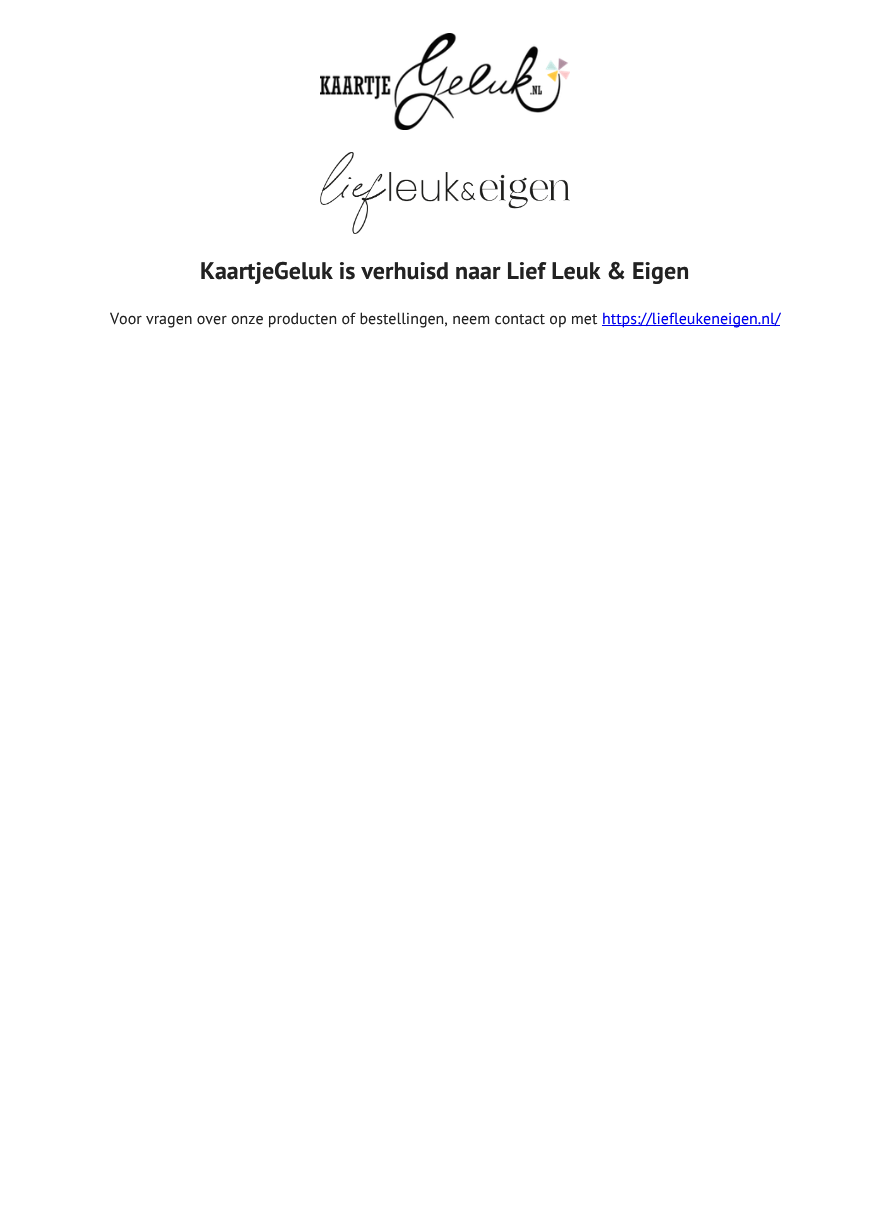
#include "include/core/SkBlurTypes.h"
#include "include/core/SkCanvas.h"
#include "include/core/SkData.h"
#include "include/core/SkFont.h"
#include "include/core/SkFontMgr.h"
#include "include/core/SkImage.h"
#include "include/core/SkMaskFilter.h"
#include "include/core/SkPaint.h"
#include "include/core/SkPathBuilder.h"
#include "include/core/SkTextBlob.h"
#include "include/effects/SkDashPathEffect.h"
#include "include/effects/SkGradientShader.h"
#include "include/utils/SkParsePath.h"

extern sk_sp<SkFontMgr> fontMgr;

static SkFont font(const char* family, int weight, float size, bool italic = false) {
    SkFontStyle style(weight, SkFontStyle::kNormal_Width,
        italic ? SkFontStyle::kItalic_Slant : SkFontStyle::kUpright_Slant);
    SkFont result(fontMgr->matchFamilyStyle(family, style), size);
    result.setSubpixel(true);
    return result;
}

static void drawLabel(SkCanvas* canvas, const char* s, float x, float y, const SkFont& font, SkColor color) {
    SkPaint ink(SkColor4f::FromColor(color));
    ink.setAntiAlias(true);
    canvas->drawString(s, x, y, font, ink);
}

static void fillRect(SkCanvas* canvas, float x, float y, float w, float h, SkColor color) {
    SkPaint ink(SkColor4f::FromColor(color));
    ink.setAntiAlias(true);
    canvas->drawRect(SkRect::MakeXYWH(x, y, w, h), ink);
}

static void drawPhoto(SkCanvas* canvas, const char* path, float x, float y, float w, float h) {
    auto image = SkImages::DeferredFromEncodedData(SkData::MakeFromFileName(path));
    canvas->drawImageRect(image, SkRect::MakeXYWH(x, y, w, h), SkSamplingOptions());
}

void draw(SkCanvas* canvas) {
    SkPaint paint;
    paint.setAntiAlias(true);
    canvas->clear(0xFFFFFFFF);
    drawPhoto(canvas, "assets/img1.png", 320, 33, 250, 97);
    drawPhoto(canvas, "assets/img2.png", 320, 152, 250, 82);
    SkFont font1 = font("PT Sans", 700, 24);
    drawLabel(canvas, "KaartjeGeluk is verhuisd naar Lief Leuk & Eigen", 200, 279, font1, 0xFF222222);
    SkFont font2 = font("PT Sans", 400, 16);
    drawLabel(canvas, "Voor vragen over onze producten of bestellingen, neem contact op met", 110, 324, font2, 0xFF222222);
    fillRect(canvas, 602, 325, 178, 1, 0xFF0000EE);
    drawLabel(canvas, "https://liefleukeneigen.nl/", 602, 324, font2, 0xFF0000EE);
}
